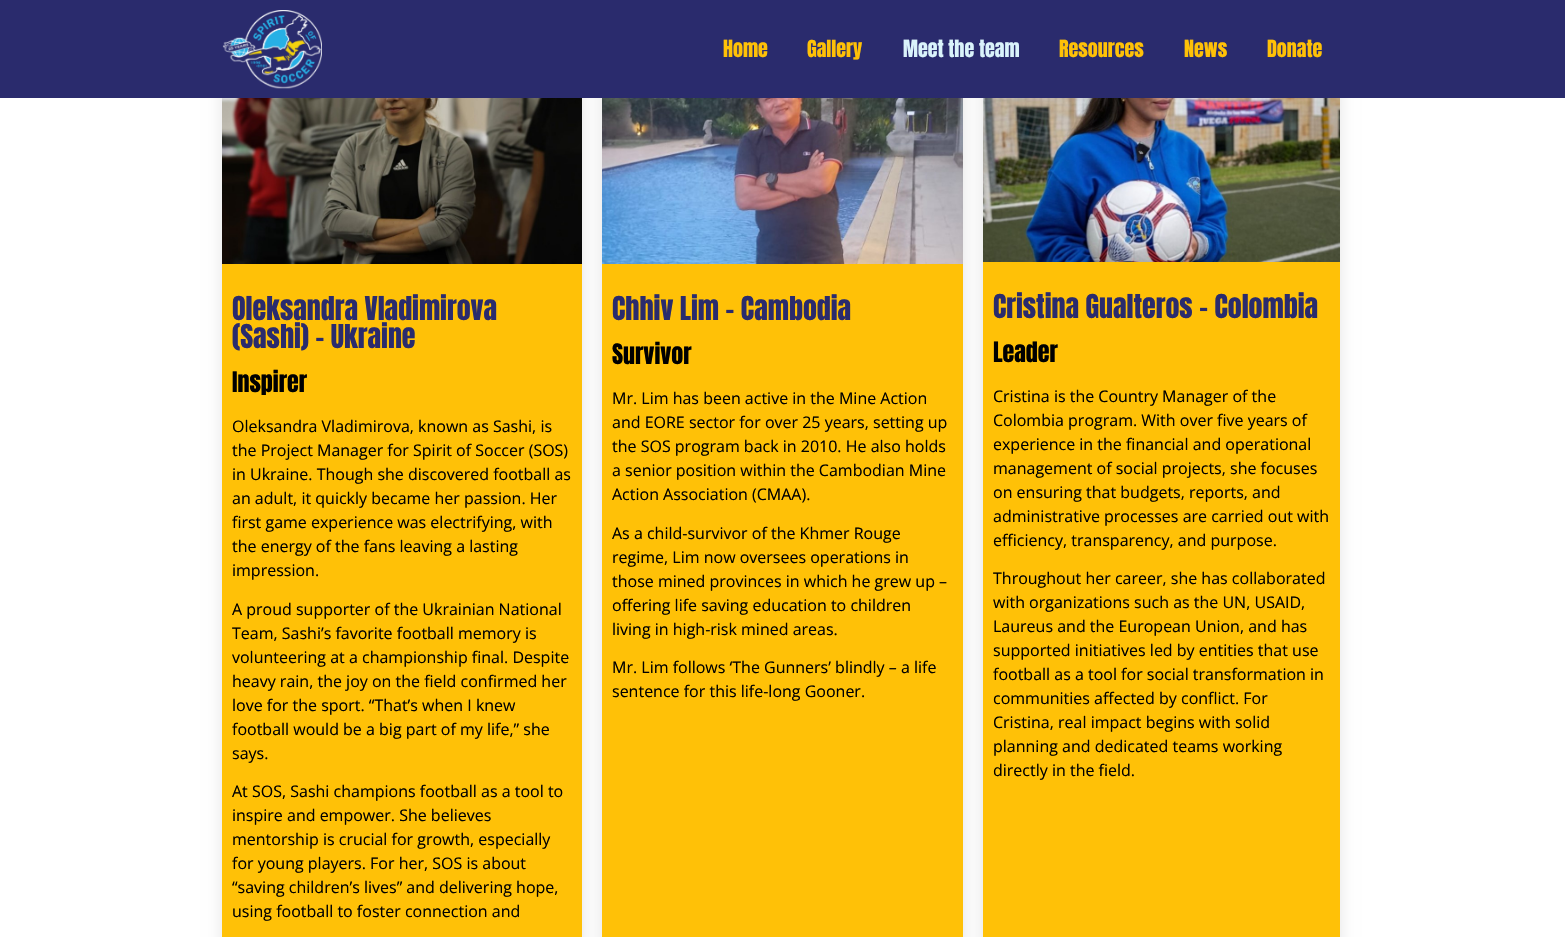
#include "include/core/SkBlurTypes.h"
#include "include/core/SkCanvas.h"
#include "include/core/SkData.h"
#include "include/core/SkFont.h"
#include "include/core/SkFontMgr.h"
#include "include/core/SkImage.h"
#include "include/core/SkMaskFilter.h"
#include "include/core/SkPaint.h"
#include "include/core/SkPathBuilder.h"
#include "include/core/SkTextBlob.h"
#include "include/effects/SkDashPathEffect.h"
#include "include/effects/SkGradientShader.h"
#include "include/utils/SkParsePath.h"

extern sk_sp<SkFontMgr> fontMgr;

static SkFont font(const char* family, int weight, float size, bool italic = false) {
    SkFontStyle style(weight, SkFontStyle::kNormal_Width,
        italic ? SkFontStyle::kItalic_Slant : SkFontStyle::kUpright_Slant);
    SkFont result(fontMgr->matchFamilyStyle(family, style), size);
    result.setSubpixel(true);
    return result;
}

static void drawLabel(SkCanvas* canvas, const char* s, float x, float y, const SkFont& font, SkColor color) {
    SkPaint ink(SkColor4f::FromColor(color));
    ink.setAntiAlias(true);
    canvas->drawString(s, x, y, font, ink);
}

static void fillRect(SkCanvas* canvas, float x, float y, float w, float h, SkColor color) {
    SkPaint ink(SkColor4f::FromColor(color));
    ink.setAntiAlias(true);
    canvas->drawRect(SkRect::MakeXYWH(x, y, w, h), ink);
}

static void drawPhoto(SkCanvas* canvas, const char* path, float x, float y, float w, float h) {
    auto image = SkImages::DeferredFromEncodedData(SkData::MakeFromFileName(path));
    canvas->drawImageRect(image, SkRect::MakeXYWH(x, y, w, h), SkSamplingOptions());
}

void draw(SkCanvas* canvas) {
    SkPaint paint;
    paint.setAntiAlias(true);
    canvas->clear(0xFFFFFFFF);
    paint.setColor(0x1A000000);
    paint.setMaskFilter(SkMaskFilter::MakeBlur(kNormal_SkBlurStyle, 7.5f));
    canvas->drawRect(SkRect::MakeXYWH(222, 35, 360, 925), paint);
    paint.setMaskFilter(nullptr);
    fillRect(canvas, 222, 264, 360, 673, 0xFFFFC107);
    drawPhoto(canvas, "assets/img2.png", 222, 98, 360, 166);
    paint.setMaskFilter(SkMaskFilter::MakeBlur(kNormal_SkBlurStyle, 7.5f));
    canvas->drawRect(SkRect::MakeXYWH(602, 35, 361, 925), paint);
    paint.setMaskFilter(nullptr);
    fillRect(canvas, 602, 264, 361, 673, 0xFFFFC107);
    drawPhoto(canvas, "assets/img3.png", 602, 98, 361, 166);
    paint.setMaskFilter(SkMaskFilter::MakeBlur(kNormal_SkBlurStyle, 7.5f));
    canvas->drawRect(SkRect::MakeXYWH(983, 35, 357, 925), paint);
    paint.setMaskFilter(nullptr);
    fillRect(canvas, 0, 0, 1565, 98, 0xFF2A2B6D);
    drawPhoto(canvas, "assets/img1.png", 222, 10, 100, 79);
    SkFont font1 = font("Anton", 400, 20);
    drawLabel(canvas, "Home", 723, 57, font1, 0xFFFFC107);
    drawLabel(canvas, "Gallery", 807, 57, font1, 0xFFFFC107);
    drawLabel(canvas, "Meet the team", 903, 57, font1, 0xFFDAF3FB);
    drawLabel(canvas, "Resources", 1059, 57, font1, 0xFFFFC107);
    drawLabel(canvas, "News", 1184, 57, font1, 0xFFFFC107);
    drawLabel(canvas, "Donate", 1267, 57, font1, 0xFFFFC107);
    SkFont font2 = font("Anton", 400, 28);
    drawLabel(canvas, "Oleksandra Vladimirova", 232, 320, font2, 0xFF2A2B6D);
    drawLabel(canvas, "(Sashi) - Ukraine", 232, 348, font2, 0xFF2A2B6D);
    SkFont font3 = font("Anton", 400, 24);
    drawLabel(canvas, "Inspirer", 232, 392, font3, 0xFF000000);
    SkFont font4 = font("Open Sans", 400, 16);
    drawLabel(canvas, "Oleksandra Vladimirova, known as Sashi, is", 232, 432, font4, 0xFF000000);
    drawLabel(canvas, "the Project Manager for Spirit of Soccer (SOS)", 232, 456, font4, 0xFF000000);
    drawLabel(canvas, "in Ukraine. Though she discovered football as", 232, 480, font4, 0xFF000000);
    drawLabel(canvas, "an adult, it quickly became her passion. Her", 232, 504, font4, 0xFF000000);
    drawLabel(canvas, "first game experience was electrifying, with", 232, 528, font4, 0xFF000000);
    drawLabel(canvas, "the energy of the fans leaving a lasting", 232, 552, font4, 0xFF000000);
    drawLabel(canvas, "impression.", 232, 576, font4, 0xFF000000);
    drawLabel(canvas, "A proud supporter of the Ukrainian National", 232, 615, font4, 0xFF000000);
    drawLabel(canvas, "Team, Sashi’s favorite football memory is", 232, 639, font4, 0xFF000000);
    drawLabel(canvas, "volunteering at a championship final. Despite", 232, 663, font4, 0xFF000000);
    drawLabel(canvas, "heavy rain, the joy on the field confirmed her", 232, 687, font4, 0xFF000000);
    drawLabel(canvas, "love for the sport. “That’s when I knew", 232, 711, font4, 0xFF000000);
    drawLabel(canvas, "football would be a big part of my life,” she", 232, 735, font4, 0xFF000000);
    drawLabel(canvas, "says.", 232, 759, font4, 0xFF000000);
    drawLabel(canvas, "At SOS, Sashi champions football as a tool to", 232, 797, font4, 0xFF000000);
    drawLabel(canvas, "inspire and empower. She believes", 232, 821, font4, 0xFF000000);
    drawLabel(canvas, "mentorship is crucial for growth, especially", 232, 845, font4, 0xFF000000);
    drawLabel(canvas, "for young players. For her, SOS is about", 232, 869, font4, 0xFF000000);
    drawLabel(canvas, "“saving children’s lives” and delivering hope,", 232, 893, font4, 0xFF000000);
    drawLabel(canvas, "using football to foster connection and", 232, 917, font4, 0xFF000000);
    drawLabel(canvas, "Chhiv Lim - Cambodia", 612, 320, font2, 0xFF2A2B6D);
    drawLabel(canvas, "Survivor", 612, 364, font3, 0xFF000000);
    drawLabel(canvas, "Mr. Lim has been active in the Mine Action", 612, 404, font4, 0xFF000000);
    drawLabel(canvas, "and EORE sector for over 25 years, setting up", 612, 428, font4, 0xFF000000);
    drawLabel(canvas, "the SOS program back in 2010. He also holds", 612, 452, font4, 0xFF000000);
    drawLabel(canvas, "a senior position within the Cambodian Mine", 612, 476, font4, 0xFF000000);
    drawLabel(canvas, "Action Association (CMAA).", 612, 500, font4, 0xFF000000);
    drawLabel(canvas, "As a child-survivor of the Khmer Rouge", 612, 539, font4, 0xFF000000);
    drawLabel(canvas, "regime, Lim now oversees operations in", 612, 563, font4, 0xFF000000);
    drawLabel(canvas, "those mined provinces in which he grew up –", 612, 587, font4, 0xFF000000);
    drawLabel(canvas, "offering life saving education to children", 612, 611, font4, 0xFF000000);
    drawLabel(canvas, "living in high-risk mined areas.", 612, 635, font4, 0xFF000000);
    drawLabel(canvas, "Mr. Lim follows ‘The Gunners’ blindly – a life", 612, 673, font4, 0xFF000000);
    drawLabel(canvas, "sentence for this life-long Gooner.", 612, 697, font4, 0xFF000000);
    fillRect(canvas, 983, 262, 357, 675, 0xFFFFC107);
    drawPhoto(canvas, "assets/img4.png", 983, 98, 357, 164);
    drawLabel(canvas, "Cristina Gualteros - Colombia", 993, 318, font2, 0xFF2A2B6D);
    drawLabel(canvas, "Leader", 993, 362, font3, 0xFF000000);
    drawLabel(canvas, "Cristina is the Country Manager of the", 993, 402, font4, 0xFF000000);
    drawLabel(canvas, "Colombia program. With over five years of", 993, 426, font4, 0xFF000000);
    drawLabel(canvas, "experience in the financial and operational", 993, 450, font4, 0xFF000000);
    drawLabel(canvas, "management of social projects, she focuses", 993, 474, font4, 0xFF000000);
    drawLabel(canvas, "on ensuring that budgets, reports, and", 993, 498, font4, 0xFF000000);
    drawLabel(canvas, "administrative processes are carried out with", 993, 522, font4, 0xFF000000);
    drawLabel(canvas, "efficiency, transparency, and purpose.", 993, 546, font4, 0xFF000000);
    drawLabel(canvas, "Throughout her career, she has collaborated", 993, 584, font4, 0xFF000000);
    drawLabel(canvas, "with organizations such as the UN, USAID,", 993, 608, font4, 0xFF000000);
    drawLabel(canvas, "Laureus and the European Union, and has", 993, 632, font4, 0xFF000000);
    drawLabel(canvas, "supported initiatives led by entities that use", 993, 656, font4, 0xFF000000);
    drawLabel(canvas, "football as a tool for social transformation in", 993, 680, font4, 0xFF000000);
    drawLabel(canvas, "communities affected by conflict. For", 993, 704, font4, 0xFF000000);
    drawLabel(canvas, "Cristina, real impact begins with solid", 993, 728, font4, 0xFF000000);
    drawLabel(canvas, "planning and dedicated teams working", 993, 752, font4, 0xFF000000);
    drawLabel(canvas, "directly in the field.", 993, 776, font4, 0xFF000000);
}
